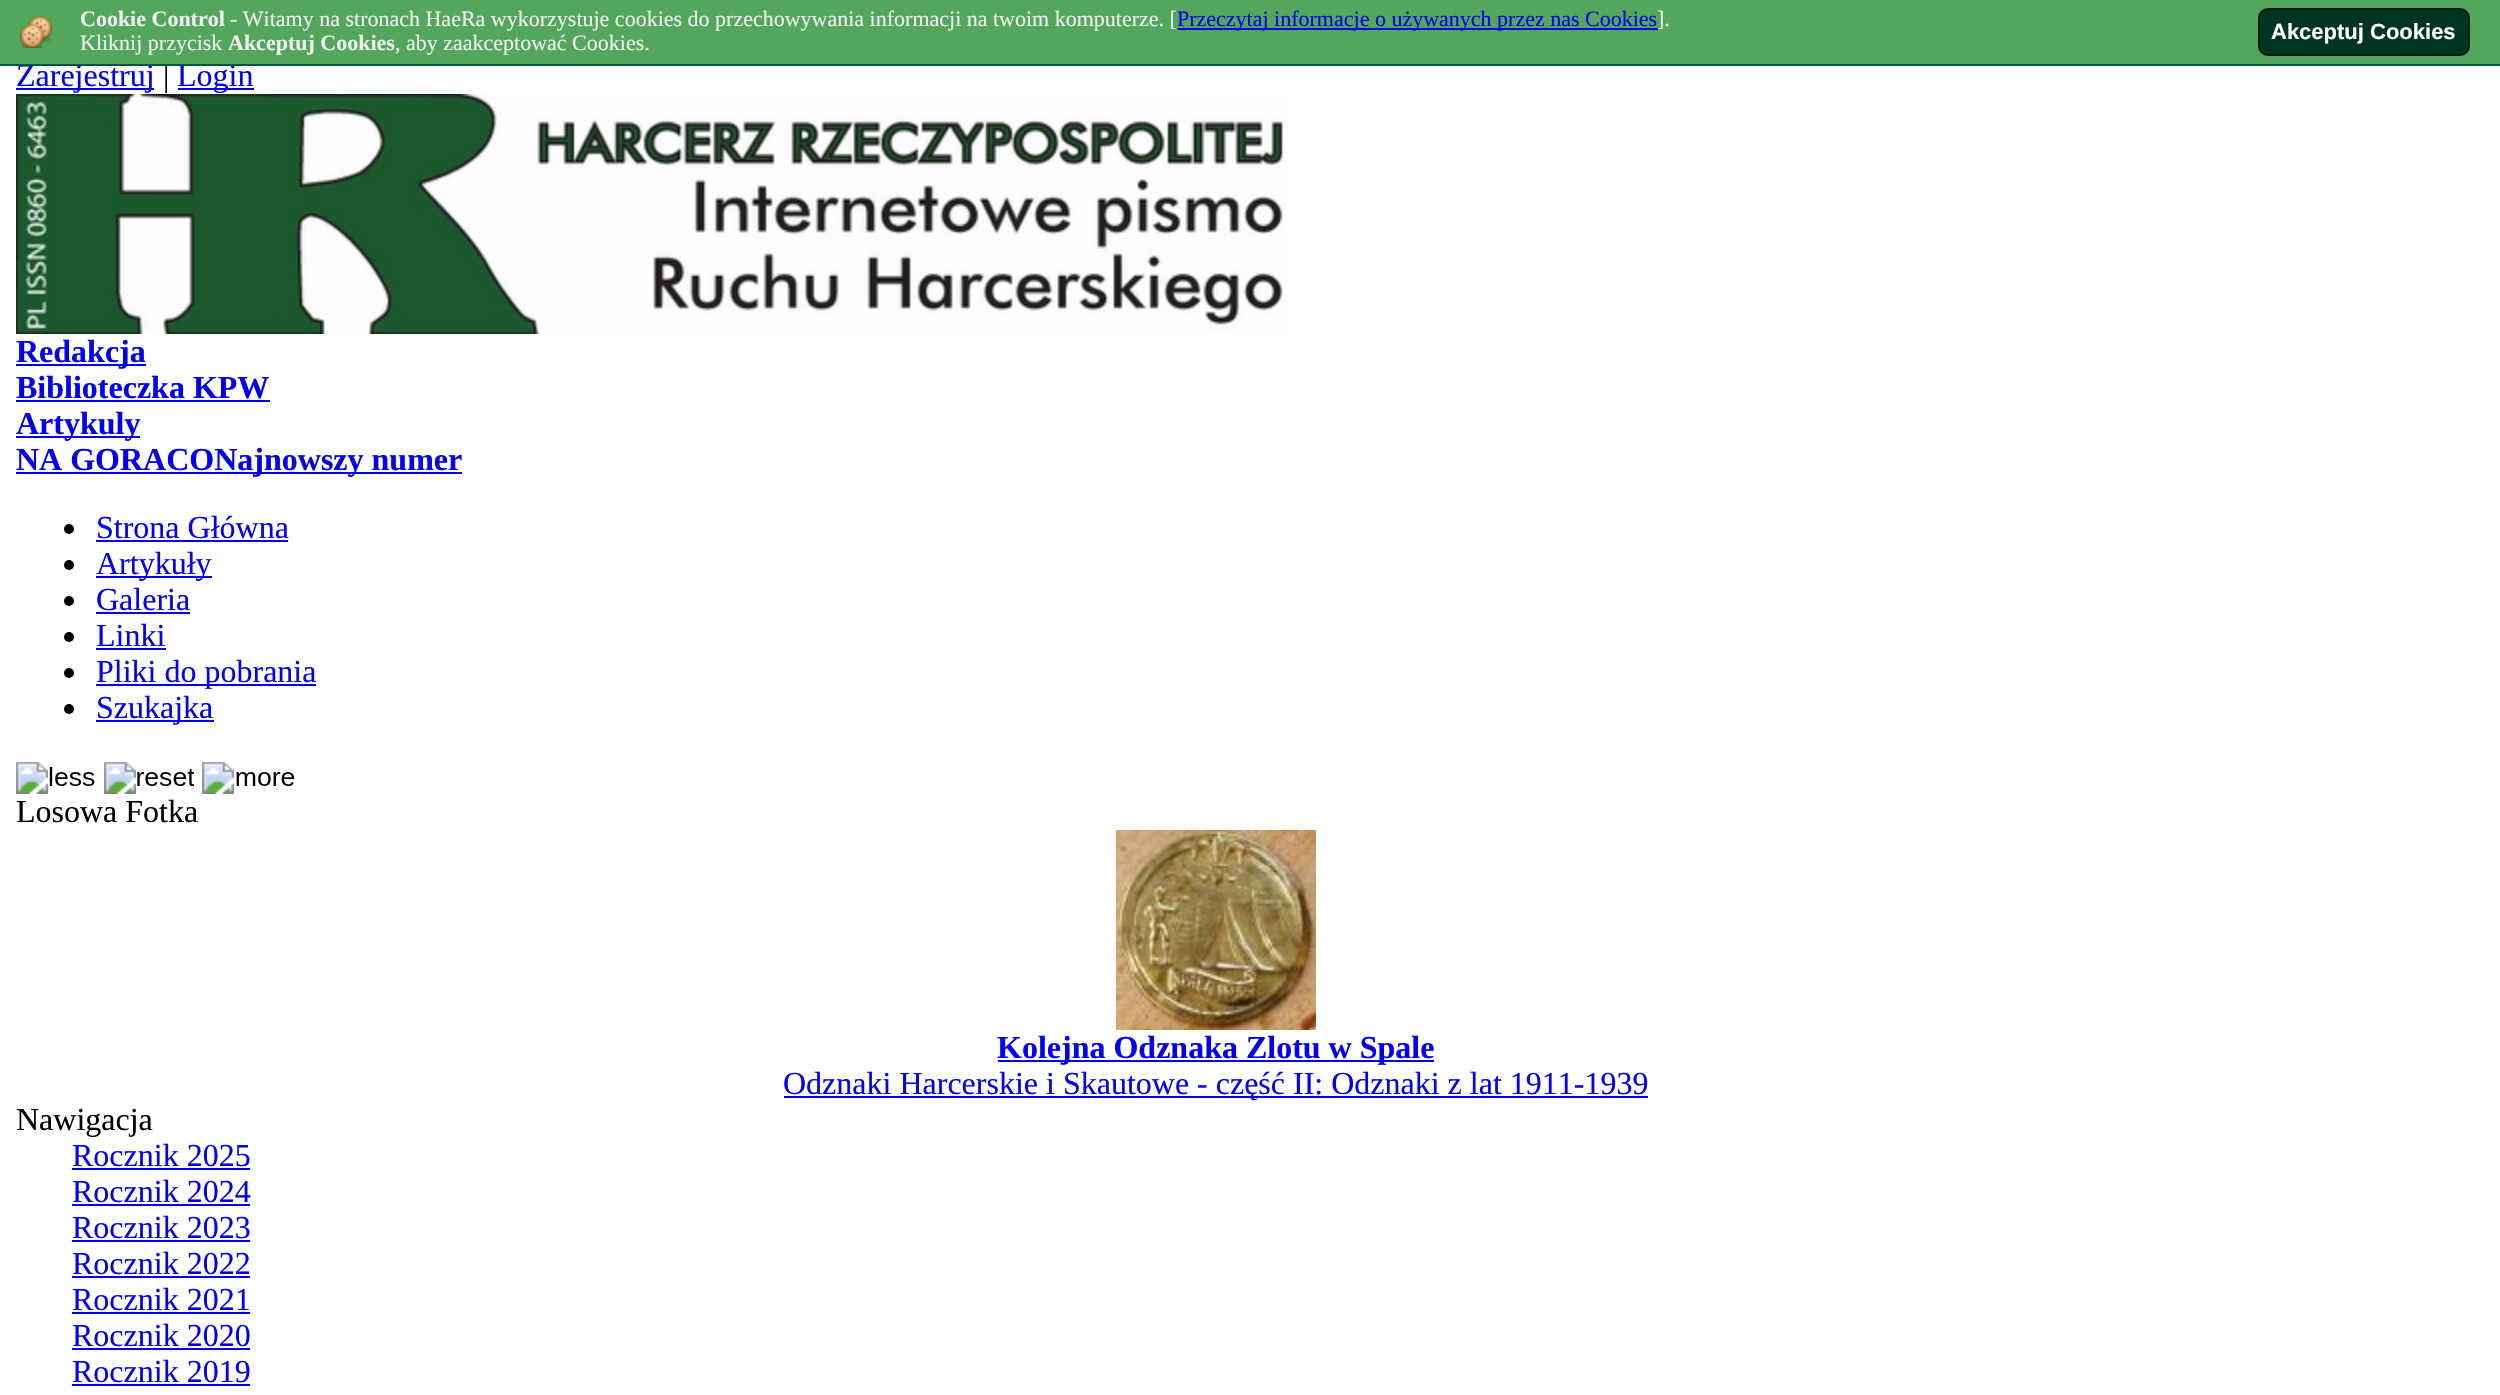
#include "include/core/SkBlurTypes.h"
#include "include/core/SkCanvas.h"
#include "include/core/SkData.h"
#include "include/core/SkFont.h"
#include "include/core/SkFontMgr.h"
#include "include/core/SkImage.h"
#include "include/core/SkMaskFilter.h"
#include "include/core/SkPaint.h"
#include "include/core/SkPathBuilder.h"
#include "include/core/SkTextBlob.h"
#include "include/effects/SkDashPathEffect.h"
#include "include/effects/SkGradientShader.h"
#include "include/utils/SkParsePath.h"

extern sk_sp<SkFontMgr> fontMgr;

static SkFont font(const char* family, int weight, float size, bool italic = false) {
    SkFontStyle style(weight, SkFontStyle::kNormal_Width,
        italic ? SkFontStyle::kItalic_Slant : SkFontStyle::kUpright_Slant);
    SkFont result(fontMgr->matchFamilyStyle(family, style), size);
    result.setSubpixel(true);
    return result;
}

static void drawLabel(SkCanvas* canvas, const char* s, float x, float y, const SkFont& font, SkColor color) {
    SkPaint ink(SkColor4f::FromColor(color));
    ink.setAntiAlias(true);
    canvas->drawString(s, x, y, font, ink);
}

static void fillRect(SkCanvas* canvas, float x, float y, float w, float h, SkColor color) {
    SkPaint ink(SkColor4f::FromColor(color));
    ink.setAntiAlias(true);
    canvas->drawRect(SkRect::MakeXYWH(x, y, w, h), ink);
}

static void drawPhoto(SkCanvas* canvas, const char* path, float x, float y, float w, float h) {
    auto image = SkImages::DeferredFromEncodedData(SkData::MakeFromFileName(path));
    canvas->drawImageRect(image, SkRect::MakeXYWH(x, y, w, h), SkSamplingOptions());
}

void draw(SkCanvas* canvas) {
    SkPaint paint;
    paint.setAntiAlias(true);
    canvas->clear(0xFFFFFFFF);
    SkFont font1 = font("Liberation Serif", 400, 32);
    drawLabel(canvas, "|", 163, 86, font1, 0xFF000000);
    fillRect(canvas, 0, 0, 2500, 64, 0xFF53A65B);
    drawPhoto(canvas, "assets/img1.png", 20, 16, 32, 32);
    fillRect(canvas, 16, 88, 138, 2, 0xFF0000EE);
    drawLabel(canvas, "Zarejestruj", 16, 86, font1, 0xFF0000EE);
    fillRect(canvas, 178, 88, 76, 2, 0xFF0000EE);
    drawLabel(canvas, "Login", 177, 86, font1, 0xFF0000EE);
    fillRect(canvas, 0, 64, 2500, 2, 0xFF005544);
    SkFont font2 = font("Liberation Serif", 700, 22);
    drawLabel(canvas, "Cookie Control", 80, 26, font2, 0xFFEEEEEE);
    SkFont font3 = font("Liberation Serif", 400, 22);
    drawLabel(canvas, "- Witamy na stronach HaeRa wykorzystuje cookies do przechowywania informacji na twoim komputerze. [", 230, 26, font3, 0xFFEEEEEE);
    fillRect(canvas, 1178, 28, 480, 2, 0xFF0000EE);
    drawLabel(canvas, "Przeczytaj informacje o używanych przez nas Cookies", 1177, 26, font3, 0xFF0000EE);
    drawLabel(canvas, "].", 1657, 26, font3, 0xFFEEEEEE);
    drawLabel(canvas, "Kliknij przycisk", 80, 50, font3, 0xFFEEEEEE);
    drawLabel(canvas, "Akceptuj Cookies", 228, 50, font2, 0xFFEEEEEE);
    drawLabel(canvas, ", aby zaakceptować Cookies.", 395, 50, font3, 0xFFEEEEEE);
    paint.setColor(0xFF003322);
    canvas->drawRoundRect(SkRect::MakeXYWH(2259, 9, 210, 46), 9, 9, paint);
    paint.setStroke(true);
    paint.setStrokeWidth(2);
    paint.setColor(0xFF001911);
    canvas->drawRoundRect(SkRect::MakeXYWH(2259, 9, 210, 46), 9, 9, paint);
    SkFont font4 = font("Liberation Sans", 700, 22);
    drawLabel(canvas, "Akceptuj Cookies", 2271, 39, font4, 0xFFFFFFFF);
    drawLabel(canvas, "Losowa Fotka", 16, 822, font1, 0xFF000000);
    drawPhoto(canvas, "assets/img2.png", 1116, 830, 200, 200);
    fillRect(canvas, 998, 1060, 436, 2, 0xFF0000EE);
    SkFont font5 = font("Liberation Serif", 700, 32);
    drawLabel(canvas, "Kolejna Odznaka Zlotu w Spale", 997, 1058, font5, 0xFF0000EE);
    fillRect(canvas, 784, 1096, 864, 2, 0xFF0000EE);
    drawLabel(canvas, "Odznaki Harcerskie i Skautowe - część II: Odznaki z lat 1911-1939", 783, 1094, font1, 0xFF0000EE);
    drawLabel(canvas, "Nawigacja", 16, 1130, font1, 0xFF000000);
    drawLabel(canvas, "Rocznik 2025", 72, 1166, font1, 0xFF0000EE);
    fillRect(canvas, 72, 1168, 178, 2, 0xFF0000EE);
    drawLabel(canvas, "Rocznik 2024", 72, 1202, font1, 0xFF0000EE);
    fillRect(canvas, 72, 1204, 178, 2, 0xFF0000EE);
    drawLabel(canvas, "Rocznik 2023", 72, 1238, font1, 0xFF0000EE);
    fillRect(canvas, 72, 1240, 178, 2, 0xFF0000EE);
    drawLabel(canvas, "Rocznik 2022", 72, 1274, font1, 0xFF0000EE);
    fillRect(canvas, 72, 1276, 178, 2, 0xFF0000EE);
    drawLabel(canvas, "Rocznik 2021", 72, 1310, font1, 0xFF0000EE);
    fillRect(canvas, 72, 1312, 178, 2, 0xFF0000EE);
    drawLabel(canvas, "Rocznik 2020", 72, 1346, font1, 0xFF0000EE);
    fillRect(canvas, 72, 1348, 178, 2, 0xFF0000EE);
    drawLabel(canvas, "Rocznik 2019", 72, 1382, font1, 0xFF0000EE);
    fillRect(canvas, 72, 1384, 178, 2, 0xFF0000EE);
    drawPhoto(canvas, "assets/img3.png", 16, 94, 1271, 240);
    fillRect(canvas, 16, 364, 130, 2, 0xFF0000EE);
    drawLabel(canvas, "Redakcja", 16, 362, font5, 0xFF0000EE);
    drawLabel(canvas, "Biblioteczka KPW", 16, 398, font5, 0xFF0000EE);
    fillRect(canvas, 16, 400, 254, 2, 0xFF0000EE);
    fillRect(canvas, 16, 436, 124, 2, 0xFF0000EE);
    drawLabel(canvas, "Artykuly", 16, 434, font5, 0xFF0000EE);
    fillRect(canvas, 16, 472, 446, 2, 0xFF0000EE);
    drawLabel(canvas, "NA GORACONajnowszy numer", 16, 470, font5, 0xFF0000EE);
    paint.setStroke(false);
    paint.setColor(0xFF000000);
    canvas->drawCircle(69, 529, 5, paint);
    drawLabel(canvas, "Strona Główna", 96, 538, font1, 0xFF0000EE);
    fillRect(canvas, 96, 540, 192, 2, 0xFF0000EE);
    canvas->drawCircle(69, 565, 5, paint);
    fillRect(canvas, 96, 576, 116, 2, 0xFF0000EE);
    drawLabel(canvas, "Artykuły", 96, 574, font1, 0xFF0000EE);
    canvas->drawCircle(69, 601, 5, paint);
    drawLabel(canvas, "Galeria", 96, 610, font1, 0xFF0000EE);
    fillRect(canvas, 96, 612, 94, 2, 0xFF0000EE);
    canvas->drawCircle(69, 637, 5, paint);
    drawLabel(canvas, "Linki", 96, 646, font1, 0xFF0000EE);
    fillRect(canvas, 96, 648, 70, 2, 0xFF0000EE);
    canvas->drawCircle(69, 673, 5, paint);
    fillRect(canvas, 96, 684, 220, 2, 0xFF0000EE);
    drawLabel(canvas, "Pliki do pobrania", 96, 682, font1, 0xFF0000EE);
    canvas->drawCircle(69, 709, 5, paint);
    fillRect(canvas, 96, 720, 118, 2, 0xFF0000EE);
    drawLabel(canvas, "Szukajka", 96, 718, font1, 0xFF0000EE);
    drawPhoto(canvas, "assets/img4.png", 16, 762, 79, 32);
    drawPhoto(canvas, "assets/img5.png", 104, 762, 90, 32);
    drawPhoto(canvas, "assets/img6.png", 202, 762, 93, 32);
}
